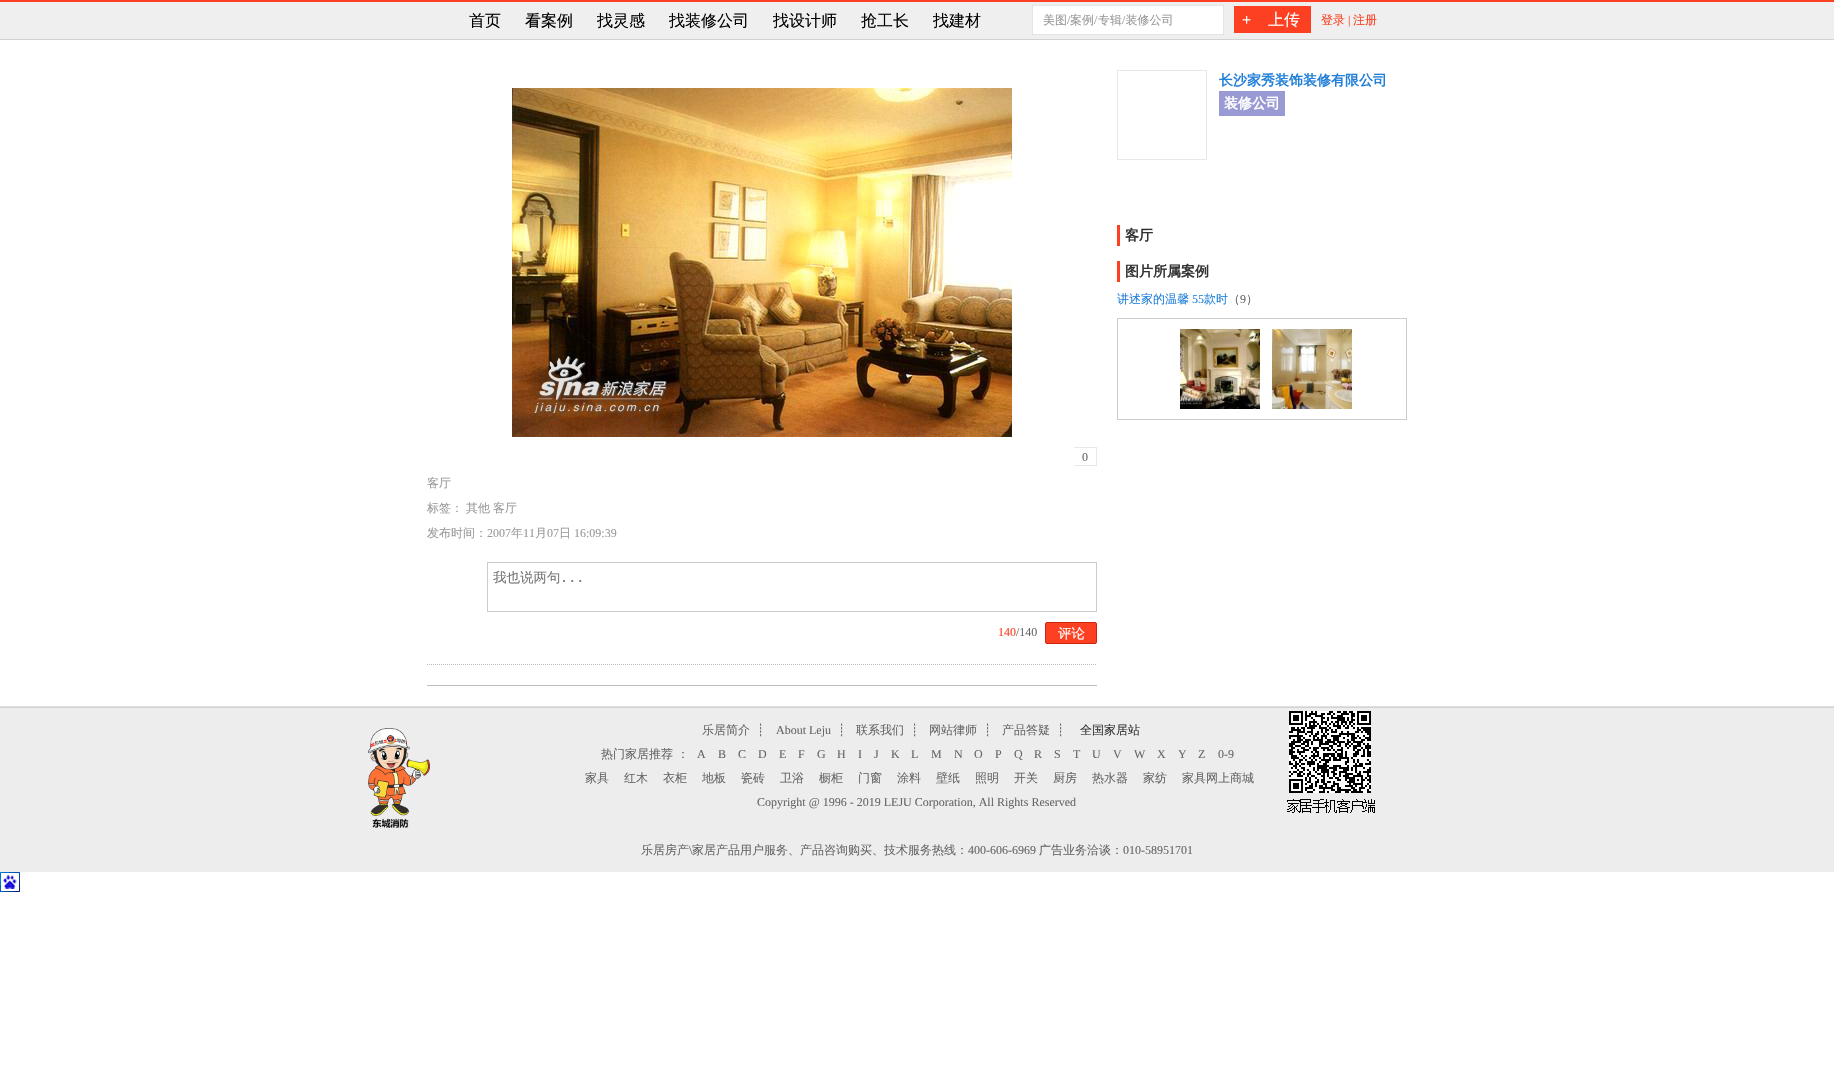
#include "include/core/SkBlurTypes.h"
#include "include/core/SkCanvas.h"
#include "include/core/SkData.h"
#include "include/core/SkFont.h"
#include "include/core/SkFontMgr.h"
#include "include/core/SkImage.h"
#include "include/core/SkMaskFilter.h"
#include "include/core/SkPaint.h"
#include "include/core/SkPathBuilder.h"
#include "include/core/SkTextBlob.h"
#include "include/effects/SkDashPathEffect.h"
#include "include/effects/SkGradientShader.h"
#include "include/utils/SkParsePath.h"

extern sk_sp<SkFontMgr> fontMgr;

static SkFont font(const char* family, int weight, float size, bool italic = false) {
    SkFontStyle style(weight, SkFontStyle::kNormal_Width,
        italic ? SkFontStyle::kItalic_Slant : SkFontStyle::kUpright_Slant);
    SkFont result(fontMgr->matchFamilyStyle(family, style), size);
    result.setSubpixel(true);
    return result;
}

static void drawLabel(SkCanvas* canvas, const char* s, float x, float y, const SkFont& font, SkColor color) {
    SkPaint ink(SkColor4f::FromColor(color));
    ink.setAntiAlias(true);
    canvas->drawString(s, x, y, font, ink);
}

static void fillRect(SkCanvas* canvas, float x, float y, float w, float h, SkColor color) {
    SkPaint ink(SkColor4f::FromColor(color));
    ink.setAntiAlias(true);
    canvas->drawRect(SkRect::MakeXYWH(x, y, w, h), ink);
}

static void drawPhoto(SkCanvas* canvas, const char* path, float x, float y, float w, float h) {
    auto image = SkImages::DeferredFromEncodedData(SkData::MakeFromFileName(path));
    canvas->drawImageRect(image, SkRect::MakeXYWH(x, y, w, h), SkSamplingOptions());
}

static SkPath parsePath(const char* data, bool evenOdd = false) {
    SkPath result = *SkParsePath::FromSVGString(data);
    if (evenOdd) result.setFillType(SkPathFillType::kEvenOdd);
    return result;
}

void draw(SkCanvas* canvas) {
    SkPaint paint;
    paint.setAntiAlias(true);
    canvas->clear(0xFFFFFFFF);
    fillRect(canvas, 0, 2, 1834, 37, 0xFFEFEFEF);
    fillRect(canvas, 0, 0, 1834, 2, 0xFFFD4022);
    fillRect(canvas, 0, 39, 1834, 1, 0xFFD2D2D2);
    SkFont font1 = font("WenQuanYi Zen Hei", 500, 16);
    drawLabel(canvas, "首页", 469, 26, font1, 0xFF010000);
    drawLabel(canvas, "看案例", 525, 26, font1, 0xFF010000);
    drawLabel(canvas, "找灵感", 597, 26, font1, 0xFF010000);
    drawLabel(canvas, "找装修公司", 669, 26, font1, 0xFF010000);
    drawLabel(canvas, "找设计师", 773, 26, font1, 0xFF010000);
    drawLabel(canvas, "抢工长", 861, 26, font1, 0xFF010000);
    drawLabel(canvas, "找建材", 933, 26, font1, 0xFF010000);
    paint.setColor(0xFFFFFFFF);
    canvas->drawRect(SkRect::MakeXYWH(1032.5f, 5.5f, 191, 29), paint);
    paint.setStroke(true);
    paint.setStrokeWidth(1);
    paint.setColor(0xFFE3E5E6);
    canvas->drawRect(SkRect::MakeXYWH(1032.5f, 5.5f, 191, 29), paint);
    SkFont font2 = font("WenQuanYi Zen Hei", 500, 12);
    drawLabel(canvas, "美图", 1043, 24, font2, 0xFF999999);
    SkFont font3 = font("Liberation Serif", 400, 12);
    drawLabel(canvas, "/", 1067, 24, font3, 0xFF999999);
    drawLabel(canvas, "案例", 1070, 24, font2, 0xFF999999);
    drawLabel(canvas, "/", 1094, 24, font3, 0xFF999999);
    drawLabel(canvas, "专辑 装修公司", 1098, 24, font2, 0xFF999999);
    drawLabel(canvas, "/", 1122, 24, font3, 0xFF999999);
    fillRect(canvas, 1234, 6, 77, 27, 0xFFFD4022);
    SkFont font4 = font("Liberation Serif", 700, 16);
    drawLabel(canvas, "+", 1242, 25, font4, 0xFFFFFFFF);
    drawLabel(canvas, "上传", 1268, 25, font1, 0xFFFFFFFF);
    drawLabel(canvas, "登录", 1321, 24, font2, 0xFFFD4022);
    drawLabel(canvas, "|", 1348, 24, font3, 0xFFFD4022);
    drawLabel(canvas, "注册", 1353, 24, font2, 0xFFFD4022);
    paint.setColor(0xFFE8E8E8);
    canvas->drawRect(SkRect::MakeXYWH(1117.5f, 70.5f, 89, 89), paint);
    SkFont font5 = font("WenQuanYi Zen Hei", 700, 14);
    drawLabel(canvas, "长沙家秀装饰装修有限公司", 1219, 85, font5, 0xFF217FD9);
    fillRect(canvas, 1219, 91, 66, 25, 0xFF999AD3);
    drawLabel(canvas, "装修公司", 1224, 108, font5, 0xFFFFFFFF);
    fillRect(canvas, 1117, 225, 3, 21, 0xFFFD4022);
    drawLabel(canvas, "客厅", 1125, 240, font5, 0xFF333333);
    fillRect(canvas, 1117, 261, 3, 21, 0xFFFD4022);
    drawLabel(canvas, "图片所属案例", 1125, 276, font5, 0xFF333333);
    drawLabel(canvas, "讲述家的温馨", 1117, 303, font2, 0xFF217FD9);
    drawLabel(canvas, "55", 1192, 303, font3, 0xFF217FD9);
    drawLabel(canvas, "款时", 1204, 303, font2, 0xFF217FD9);
    drawLabel(canvas, "（", 1228, 303, font2, 0xFF666666);
    drawLabel(canvas, "9", 1240, 303, font3, 0xFF666666);
    drawLabel(canvas, "）", 1246, 303, font2, 0xFF666666);
    paint.setColor(0xFFCCCCCC);
    canvas->drawRect(SkRect::MakeXYWH(1117.5f, 318.5f, 289, 101), paint);
    drawPhoto(canvas, "assets/img1.png", 1180, 329, 80, 80);
    drawPhoto(canvas, "assets/img2.png", 1272, 329, 80, 80);
    drawPhoto(canvas, "assets/img3.png", 512, 88, 500, 349);
    fillRect(canvas, 1074, 447, 23, 1, 0xFFE8E8E8);
    fillRect(canvas, 1096, 447, 1, 19, 0xFFE8E8E8);
    fillRect(canvas, 1074, 465, 23, 1, 0xFFE8E8E8);
    drawLabel(canvas, "0", 1082, 461, font3, 0xFF666666);
    drawLabel(canvas, "客厅", 427, 487, font2, 0xFF999999);
    drawLabel(canvas, "标签：", 427, 512, font2, 0xFF999999);
    drawLabel(canvas, "其他", 466, 512, font2, 0xFF999999);
    drawLabel(canvas, "客厅", 493, 512, font2, 0xFF999999);
    drawLabel(canvas, "发布时间：", 427, 537, font2, 0xFF999999);
    drawLabel(canvas, "2007", 487, 537, font3, 0xFF999999);
    drawLabel(canvas, "年", 511, 537, font2, 0xFF999999);
    drawLabel(canvas, "11", 523, 537, font3, 0xFF999999);
    drawLabel(canvas, "月", 535, 537, font2, 0xFF999999);
    drawLabel(canvas, "07", 547, 537, font3, 0xFF999999);
    drawLabel(canvas, "日", 559, 537, font2, 0xFF999999);
    drawLabel(canvas, "16:09:39", 574, 537, font3, 0xFF999999);
    canvas->drawRect(SkRect::MakeXYWH(487.5f, 562.5f, 609, 49), paint);
    SkFont font6 = font("WenQuanYi Zen Hei", 500, 13.5f);
    drawLabel(canvas, "我也说两句", 493, 582, font6, 0xFF757575);
    SkFont font7 = font("DejaVu Sans Mono", 400, 13.5f);
    drawLabel(canvas, "...", 560, 582, font7, 0xFF757575);
    drawLabel(canvas, "140", 998, 636, font3, 0xFFFD4022);
    drawLabel(canvas, "/140", 1016, 636, font3, 0xFF666666);
    paint.setStroke(false);
    paint.setColor(0xFFFD4022);
    canvas->drawRoundRect(SkRect::MakeXYWH(1045.5f, 622.5f, 51, 21), 1.5f, 1.5f, paint);
    paint.setStroke(true);
    paint.setColor(0xFFCB260C);
    canvas->drawRoundRect(SkRect::MakeXYWH(1045.5f, 622.5f, 51, 21), 1.5f, 1.5f, paint);
    drawLabel(canvas, "评论", 1058, 638, font6, 0xFFFFFFFF);
    paint.setColor(0xFFBCBCBC);
    paint.setPathEffect(SkDashPathEffect::Make({{1, 1}}, 0));
    canvas->drawPath(parsePath("M427 664.5H1097"), paint);
    paint.setPathEffect(nullptr);
    fillRect(canvas, 427, 685, 670, 1, 0xFFBCBCBC);
    fillRect(canvas, 0, 706, 1834, 1, 0xFFE0E0E0);
    fillRect(canvas, 0, 708, 1834, 164, 0xFFEDEDED);
    fillRect(canvas, 0, 707, 1834, 1, 0xFFD2D2D2);
    drawLabel(canvas, "乐居简介", 702, 734, font2, 0xFF666666);
    SkFont font8 = font("DejaVu Sans", 400, 12);
    drawLabel(canvas, "┊", 757, 734, font8, 0xFF666666);
    drawLabel(canvas, "About Leju", 776, 734, font3, 0xFF666666);
    drawLabel(canvas, "┊", 838, 734, font8, 0xFF666666);
    drawLabel(canvas, "联系我们", 856, 734, font2, 0xFF666666);
    drawLabel(canvas, "┊", 911, 734, font8, 0xFF666666);
    drawLabel(canvas, "网站律师", 929, 734, font2, 0xFF666666);
    drawLabel(canvas, "┊", 984, 734, font8, 0xFF666666);
    drawLabel(canvas, "产品答疑", 1002, 734, font2, 0xFF666666);
    drawLabel(canvas, "┊", 1057, 734, font8, 0xFF666666);
    drawPhoto(canvas, "assets/img4.png", 368, 728, 62, 100);
    drawLabel(canvas, "全国家居站", 1080, 734, font2, 0xFF333333);
    drawPhoto(canvas, "assets/img5.png", 1287, 711, 88, 102);
    drawLabel(canvas, "热门家居推荐", 601, 758, font2, 0xFF666666);
    drawLabel(canvas, "：", 677, 758, font2, 0xFF666666);
    drawLabel(canvas, "A", 697, 758, font3, 0xFF666666);
    drawLabel(canvas, "B", 718, 758, font3, 0xFF666666);
    drawLabel(canvas, "C", 738, 758, font3, 0xFF666666);
    drawLabel(canvas, "D", 758, 758, font3, 0xFF666666);
    drawLabel(canvas, "E", 779, 758, font3, 0xFF666666);
    drawLabel(canvas, "F", 798, 758, font3, 0xFF666666);
    drawLabel(canvas, "G", 817, 758, font3, 0xFF666666);
    drawLabel(canvas, "H", 837, 758, font3, 0xFF666666);
    drawLabel(canvas, "I", 858, 758, font3, 0xFF666666);
    drawLabel(canvas, "J", 874, 758, font3, 0xFF666666);
    drawLabel(canvas, "K", 891, 758, font3, 0xFF666666);
    drawLabel(canvas, "L", 911, 758, font3, 0xFF666666);
    drawLabel(canvas, "M", 931, 758, font3, 0xFF666666);
    drawLabel(canvas, "N", 954, 758, font3, 0xFF666666);
    drawLabel(canvas, "O", 974, 758, font3, 0xFF666666);
    drawLabel(canvas, "P", 995, 758, font3, 0xFF666666);
    drawLabel(canvas, "Q", 1014, 758, font3, 0xFF666666);
    drawLabel(canvas, "R", 1034, 758, font3, 0xFF666666);
    drawLabel(canvas, "S", 1054, 758, font3, 0xFF666666);
    drawLabel(canvas, "T", 1073, 758, font3, 0xFF666666);
    drawLabel(canvas, "U", 1092, 758, font3, 0xFF666666);
    drawLabel(canvas, "V", 1113, 758, font3, 0xFF666666);
    drawLabel(canvas, "W", 1134, 758, font3, 0xFF666666);
    drawLabel(canvas, "X", 1157, 758, font3, 0xFF666666);
    drawLabel(canvas, "Y", 1178, 758, font3, 0xFF666666);
    drawLabel(canvas, "Z", 1198, 758, font3, 0xFF666666);
    drawLabel(canvas, "0-9", 1218, 758, font3, 0xFF666666);
    drawLabel(canvas, "家具", 585, 782, font2, 0xFF666666);
    drawLabel(canvas, "红木", 624, 782, font2, 0xFF666666);
    drawLabel(canvas, "衣柜", 663, 782, font2, 0xFF666666);
    drawLabel(canvas, "地板", 702, 782, font2, 0xFF666666);
    drawLabel(canvas, "瓷砖", 741, 782, font2, 0xFF666666);
    drawLabel(canvas, "卫浴", 780, 782, font2, 0xFF666666);
    drawLabel(canvas, "橱柜", 819, 782, font2, 0xFF666666);
    drawLabel(canvas, "门窗", 858, 782, font2, 0xFF666666);
    drawLabel(canvas, "涂料", 897, 782, font2, 0xFF666666);
    drawLabel(canvas, "壁纸", 936, 782, font2, 0xFF666666);
    drawLabel(canvas, "照明", 975, 782, font2, 0xFF666666);
    drawLabel(canvas, "开关", 1014, 782, font2, 0xFF666666);
    drawLabel(canvas, "厨房", 1053, 782, font2, 0xFF666666);
    drawLabel(canvas, "热水器", 1092, 782, font2, 0xFF666666);
    drawLabel(canvas, "家纺", 1143, 782, font2, 0xFF666666);
    drawLabel(canvas, "家具网上商城", 1182, 782, font2, 0xFF666666);
    drawLabel(canvas, "Copyright @ 1996 - 2019 LEJU Corporation, All Rights Reserved", 757, 806, font3, 0xFF666666);
    drawLabel(canvas, "乐居房产", 641, 854, font2, 0xFF666666);
    drawLabel(canvas, "\\", 689, 854, font3, 0xFF666666);
    drawLabel(canvas, "家居产品用户服务、产品咨询购买、技术服务热线：", 692, 854, font2, 0xFF666666);
    drawLabel(canvas, "400-606-6969", 968, 854, font3, 0xFF666666);
    drawLabel(canvas, "广告业务洽谈：", 1039, 854, font2, 0xFF666666);
    drawLabel(canvas, "010-58951701", 1123, 854, font3, 0xFF666666);
    drawPhoto(canvas, "assets/img6.png", 0, 872, 20, 20);
}
